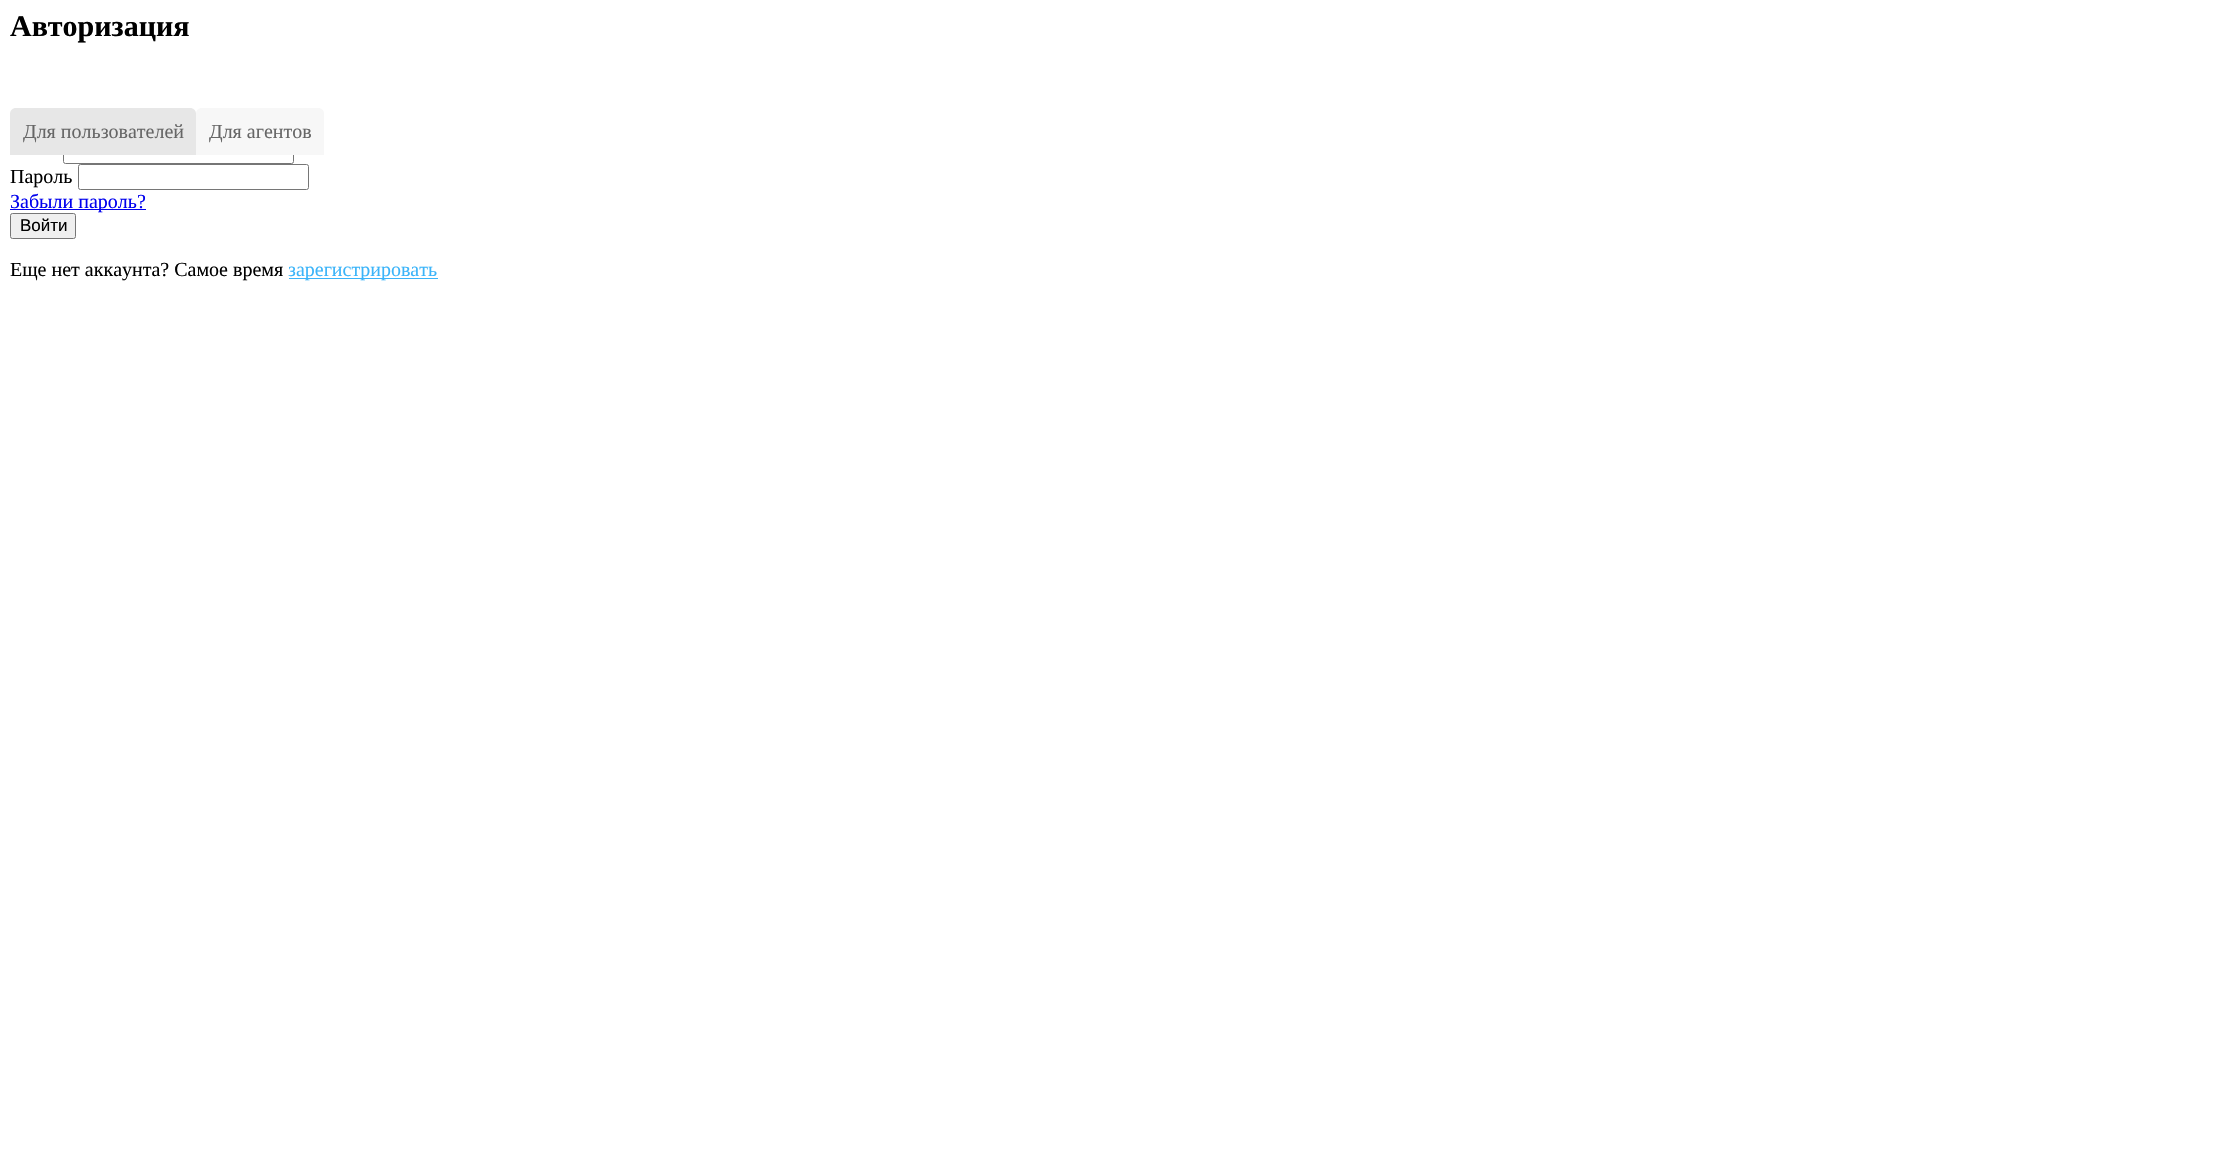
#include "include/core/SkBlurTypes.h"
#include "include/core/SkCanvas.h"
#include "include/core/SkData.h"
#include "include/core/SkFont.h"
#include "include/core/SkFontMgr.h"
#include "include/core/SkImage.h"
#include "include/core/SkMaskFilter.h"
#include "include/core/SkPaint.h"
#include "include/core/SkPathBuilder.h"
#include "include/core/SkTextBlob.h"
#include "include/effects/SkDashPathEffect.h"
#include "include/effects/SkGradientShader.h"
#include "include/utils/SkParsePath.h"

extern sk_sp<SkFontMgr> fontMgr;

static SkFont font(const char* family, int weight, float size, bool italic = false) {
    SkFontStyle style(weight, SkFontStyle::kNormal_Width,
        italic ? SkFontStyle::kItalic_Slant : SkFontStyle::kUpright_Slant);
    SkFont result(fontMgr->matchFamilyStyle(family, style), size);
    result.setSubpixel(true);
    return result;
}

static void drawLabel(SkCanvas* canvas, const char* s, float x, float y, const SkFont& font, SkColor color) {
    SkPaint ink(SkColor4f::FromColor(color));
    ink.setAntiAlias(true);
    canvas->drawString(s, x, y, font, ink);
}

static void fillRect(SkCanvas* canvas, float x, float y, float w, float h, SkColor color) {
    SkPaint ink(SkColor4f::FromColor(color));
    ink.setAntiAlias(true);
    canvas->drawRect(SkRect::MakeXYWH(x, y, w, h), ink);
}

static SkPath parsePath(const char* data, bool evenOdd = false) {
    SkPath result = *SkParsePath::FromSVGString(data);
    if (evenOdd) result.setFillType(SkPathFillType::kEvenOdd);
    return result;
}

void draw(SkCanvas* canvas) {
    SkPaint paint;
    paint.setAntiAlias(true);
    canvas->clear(0xFFFFFFFF);
    SkFont font1 = font("Liberation Serif", 700, 30);
    drawLabel(canvas, "Авторизация", 10, 36, font1, 0xFF000000);
    paint.setStroke(true);
    paint.setStrokeWidth(1);
    paint.setColor(0xFF767676);
    canvas->drawRoundRect(SkRect::MakeXYWH(63.5f, 138.5f, 230, 25), 2, 2, paint);
    paint.setStroke(false);
    paint.setColor(0xFFE7E7E7);
    canvas->drawPath(parsePath("M16 108H190C193.5 108 196 110.5 196 114V155H10V114C10 110.5 12.5 108 16 108Z"), paint);
    SkFont font2 = font("Liberation Serif", 400, 20);
    drawLabel(canvas, "Для пользователей", 23, 138, font2, 0xFF666666);
    paint.setColor(0xFFF7F7F7);
    canvas->drawPath(parsePath("M202 108H318C321.5 108 324 110.5 324 114V155H196V114C196 110.5 198.5 108 202 108Z"), paint);
    drawLabel(canvas, "Для агентов", 209, 138, font2, 0xFF666666);
    drawLabel(canvas, "Пароль", 10, 183, font2, 0xFF000000);
    paint.setStroke(true);
    paint.setColor(0xFF767676);
    canvas->drawRoundRect(SkRect::MakeXYWH(78.5f, 164.5f, 230, 25), 2, 2, paint);
    fillRect(canvas, 10, 209, 136, 1, 0xFF0000EE);
    drawLabel(canvas, "Забыли пароль?", 10, 208, font2, 0xFF0000EE);
    paint.setStroke(false);
    paint.setColor(0xFFEFEFEF);
    canvas->drawRoundRect(SkRect::MakeXYWH(10.5f, 213.5f, 65, 25), 2, 2, paint);
    paint.setStroke(true);
    paint.setColor(0xFF767676);
    canvas->drawRoundRect(SkRect::MakeXYWH(10.5f, 213.5f, 65, 25), 2, 2, paint);
    SkFont font3 = font("Liberation Sans", 400, 17);
    drawLabel(canvas, "Войти", 20, 231, font3, 0xFF000000);
    drawLabel(canvas, "Еще нет аккаунта? Самое время", 10, 276, font2, 0xFF000000);
    fillRect(canvas, 289, 278, 149, 1, 0xFF3BB4F9);
    drawLabel(canvas, "зарегистрировать", 288, 276, font2, 0xFF3BB4F9);
}
